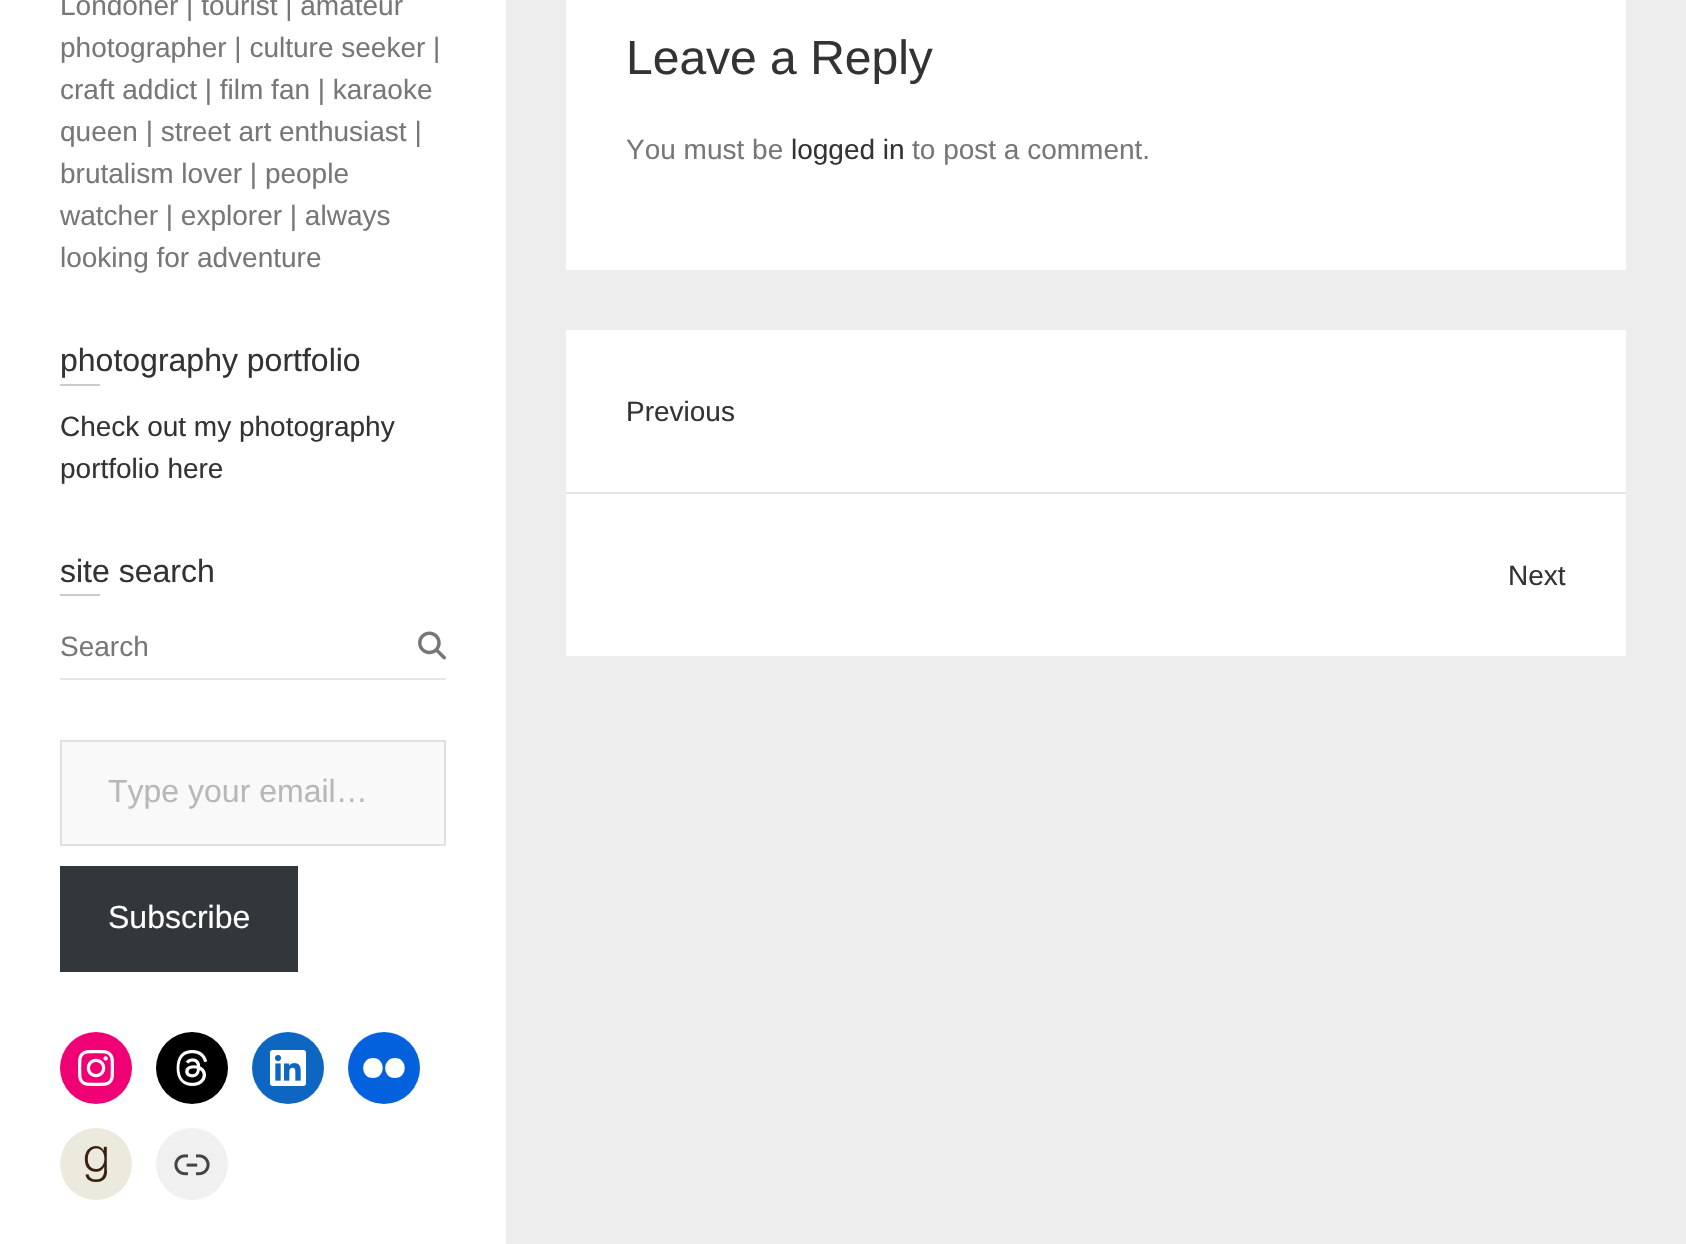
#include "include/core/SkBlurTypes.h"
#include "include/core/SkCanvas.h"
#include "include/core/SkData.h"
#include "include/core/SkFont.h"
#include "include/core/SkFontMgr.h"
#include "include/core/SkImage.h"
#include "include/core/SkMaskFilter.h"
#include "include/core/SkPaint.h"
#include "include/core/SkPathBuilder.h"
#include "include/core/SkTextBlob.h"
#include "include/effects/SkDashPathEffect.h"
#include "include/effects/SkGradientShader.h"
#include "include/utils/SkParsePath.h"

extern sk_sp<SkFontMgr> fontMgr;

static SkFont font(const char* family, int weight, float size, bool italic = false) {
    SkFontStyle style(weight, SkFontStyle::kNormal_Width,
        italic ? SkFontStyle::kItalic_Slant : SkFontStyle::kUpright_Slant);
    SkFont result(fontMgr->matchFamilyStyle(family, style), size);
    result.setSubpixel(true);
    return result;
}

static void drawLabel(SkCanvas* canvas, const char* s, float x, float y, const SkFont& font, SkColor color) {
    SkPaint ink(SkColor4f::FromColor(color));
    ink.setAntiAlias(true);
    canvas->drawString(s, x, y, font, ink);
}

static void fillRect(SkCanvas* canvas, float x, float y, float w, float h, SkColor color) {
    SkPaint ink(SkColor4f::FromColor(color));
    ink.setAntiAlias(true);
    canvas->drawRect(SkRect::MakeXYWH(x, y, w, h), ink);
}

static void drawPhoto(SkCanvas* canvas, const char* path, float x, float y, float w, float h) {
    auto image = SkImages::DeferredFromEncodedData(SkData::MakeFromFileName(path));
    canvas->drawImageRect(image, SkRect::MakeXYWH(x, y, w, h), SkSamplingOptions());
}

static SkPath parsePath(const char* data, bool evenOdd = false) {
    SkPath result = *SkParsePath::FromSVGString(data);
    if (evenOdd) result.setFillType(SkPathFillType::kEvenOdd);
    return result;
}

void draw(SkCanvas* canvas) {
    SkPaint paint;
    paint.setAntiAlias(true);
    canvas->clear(0xFFEEEEEE);
    fillRect(canvas, 0, 0, 506, 1244, 0xFFFFFFFF);
    SkFont font1 = font("Liberation Sans", 400, 28);
    drawLabel(canvas, "Londoner | tourist | amateur", 60, 15, font1, 0xFF777777);
    drawLabel(canvas, "photographer | culture seeker |", 60, 57, font1, 0xFF777777);
    drawLabel(canvas, "craft addict | film fan | karaoke", 60, 99, font1, 0xFF777777);
    drawLabel(canvas, "queen | street art enthusiast |", 60, 141, font1, 0xFF777777);
    drawLabel(canvas, "brutalism lover | people", 60, 183, font1, 0xFF777777);
    drawLabel(canvas, "watcher | explorer | always", 60, 225, font1, 0xFF777777);
    drawLabel(canvas, "looking for adventure", 60, 267, font1, 0xFF777777);
    SkFont font2 = font("Liberation Sans", 400, 32);
    drawLabel(canvas, "photography portfolio", 60, 371, font2, 0xFF333333);
    fillRect(canvas, 60, 384, 40, 2, 0xFFCCCCCC);
    drawLabel(canvas, "Check out my photography", 60, 436, font1, 0xFF333333);
    drawLabel(canvas, "portfolio here", 60, 478, font1, 0xFF333333);
    drawLabel(canvas, "site search", 60, 582, font2, 0xFF333333);
    fillRect(canvas, 60, 594, 40, 2, 0xFFCCCCCC);
    fillRect(canvas, 60, 678, 386, 2, 0xFFE6E6E6);
    drawLabel(canvas, "Search", 60, 656, font1, 0xFF777777);
    drawPhoto(canvas, "assets/img1.png", 418, 631, 28, 29);
    paint.setColor(0xFFF9F9F9);
    canvas->drawRect(SkRect::MakeXYWH(61, 741, 384, 104), paint);
    paint.setStroke(true);
    paint.setStrokeWidth(2);
    paint.setColor(0xFFE0E0E0);
    canvas->drawRect(SkRect::MakeXYWH(61, 741, 384, 104), paint);
    drawLabel(canvas, "Type your email…", 108, 802, font2, 0xFFB8B8B8);
    fillRect(canvas, 60, 866, 238, 106, 0xFF32373C);
    drawLabel(canvas, "Subscribe", 108, 928, font2, 0xFFFFFFFF);
    paint.setStroke(false);
    paint.setColor(0xFFF00075);
    canvas->drawCircle(96, 1068, 36, paint);
    drawPhoto(canvas, "assets/img2.png", 78, 1050, 36, 36);
    paint.setColor(0xFF000000);
    canvas->drawCircle(192, 1068, 36, paint);
    drawPhoto(canvas, "assets/img3.png", 176, 1050, 32, 36);
    paint.setColor(0xFF0D66C2);
    canvas->drawCircle(288, 1068, 36, paint);
    drawPhoto(canvas, "assets/img4.png", 270, 1050, 36, 36);
    paint.setColor(0xFF0461DD);
    canvas->drawCircle(384, 1068, 36, paint);
    paint.setColor(0xFFFFFFFF);
    canvas->drawPath(parsePath("M373 1058C360 1058 360 1078 373 1078C386 1078 386 1058 373 1058ZM395 1058C382 1058 382 1078 395 1078C408 1078 408 1058 395 1058Z"), paint);
    paint.setColor(0xFFECEADD);
    canvas->drawCircle(96, 1164, 36, paint);
    drawPhoto(canvas, "assets/img5.png", 84, 1146, 23, 36);
    paint.setColor(0xFFF0F0F0);
    canvas->drawCircle(192, 1164, 36, paint);
    drawPhoto(canvas, "assets/img6.png", 174, 1154, 36, 22);
    fillRect(canvas, 566, 0, 1060, 270, 0xFFFFFFFF);
    SkFont font3 = font("Liberation Sans", 400, 48);
    drawLabel(canvas, "Leave a Reply", 626, 74, font3, 0xFF333333);
    drawLabel(canvas, "You must be", 626, 159, font1, 0xFF777777);
    drawLabel(canvas, "logged in", 791, 159, font1, 0xFF333333);
    drawLabel(canvas, "to post a comment.", 912, 159, font1, 0xFF777777);
    fillRect(canvas, 566, 330, 1060, 326, 0xFFFFFFFF);
    fillRect(canvas, 566, 492, 1060, 2, 0xFFE6E6E6);
    drawLabel(canvas, "Previous", 626, 421, font1, 0xFF333333);
    drawLabel(canvas, "Next", 1508, 585, font1, 0xFF333333);
}
